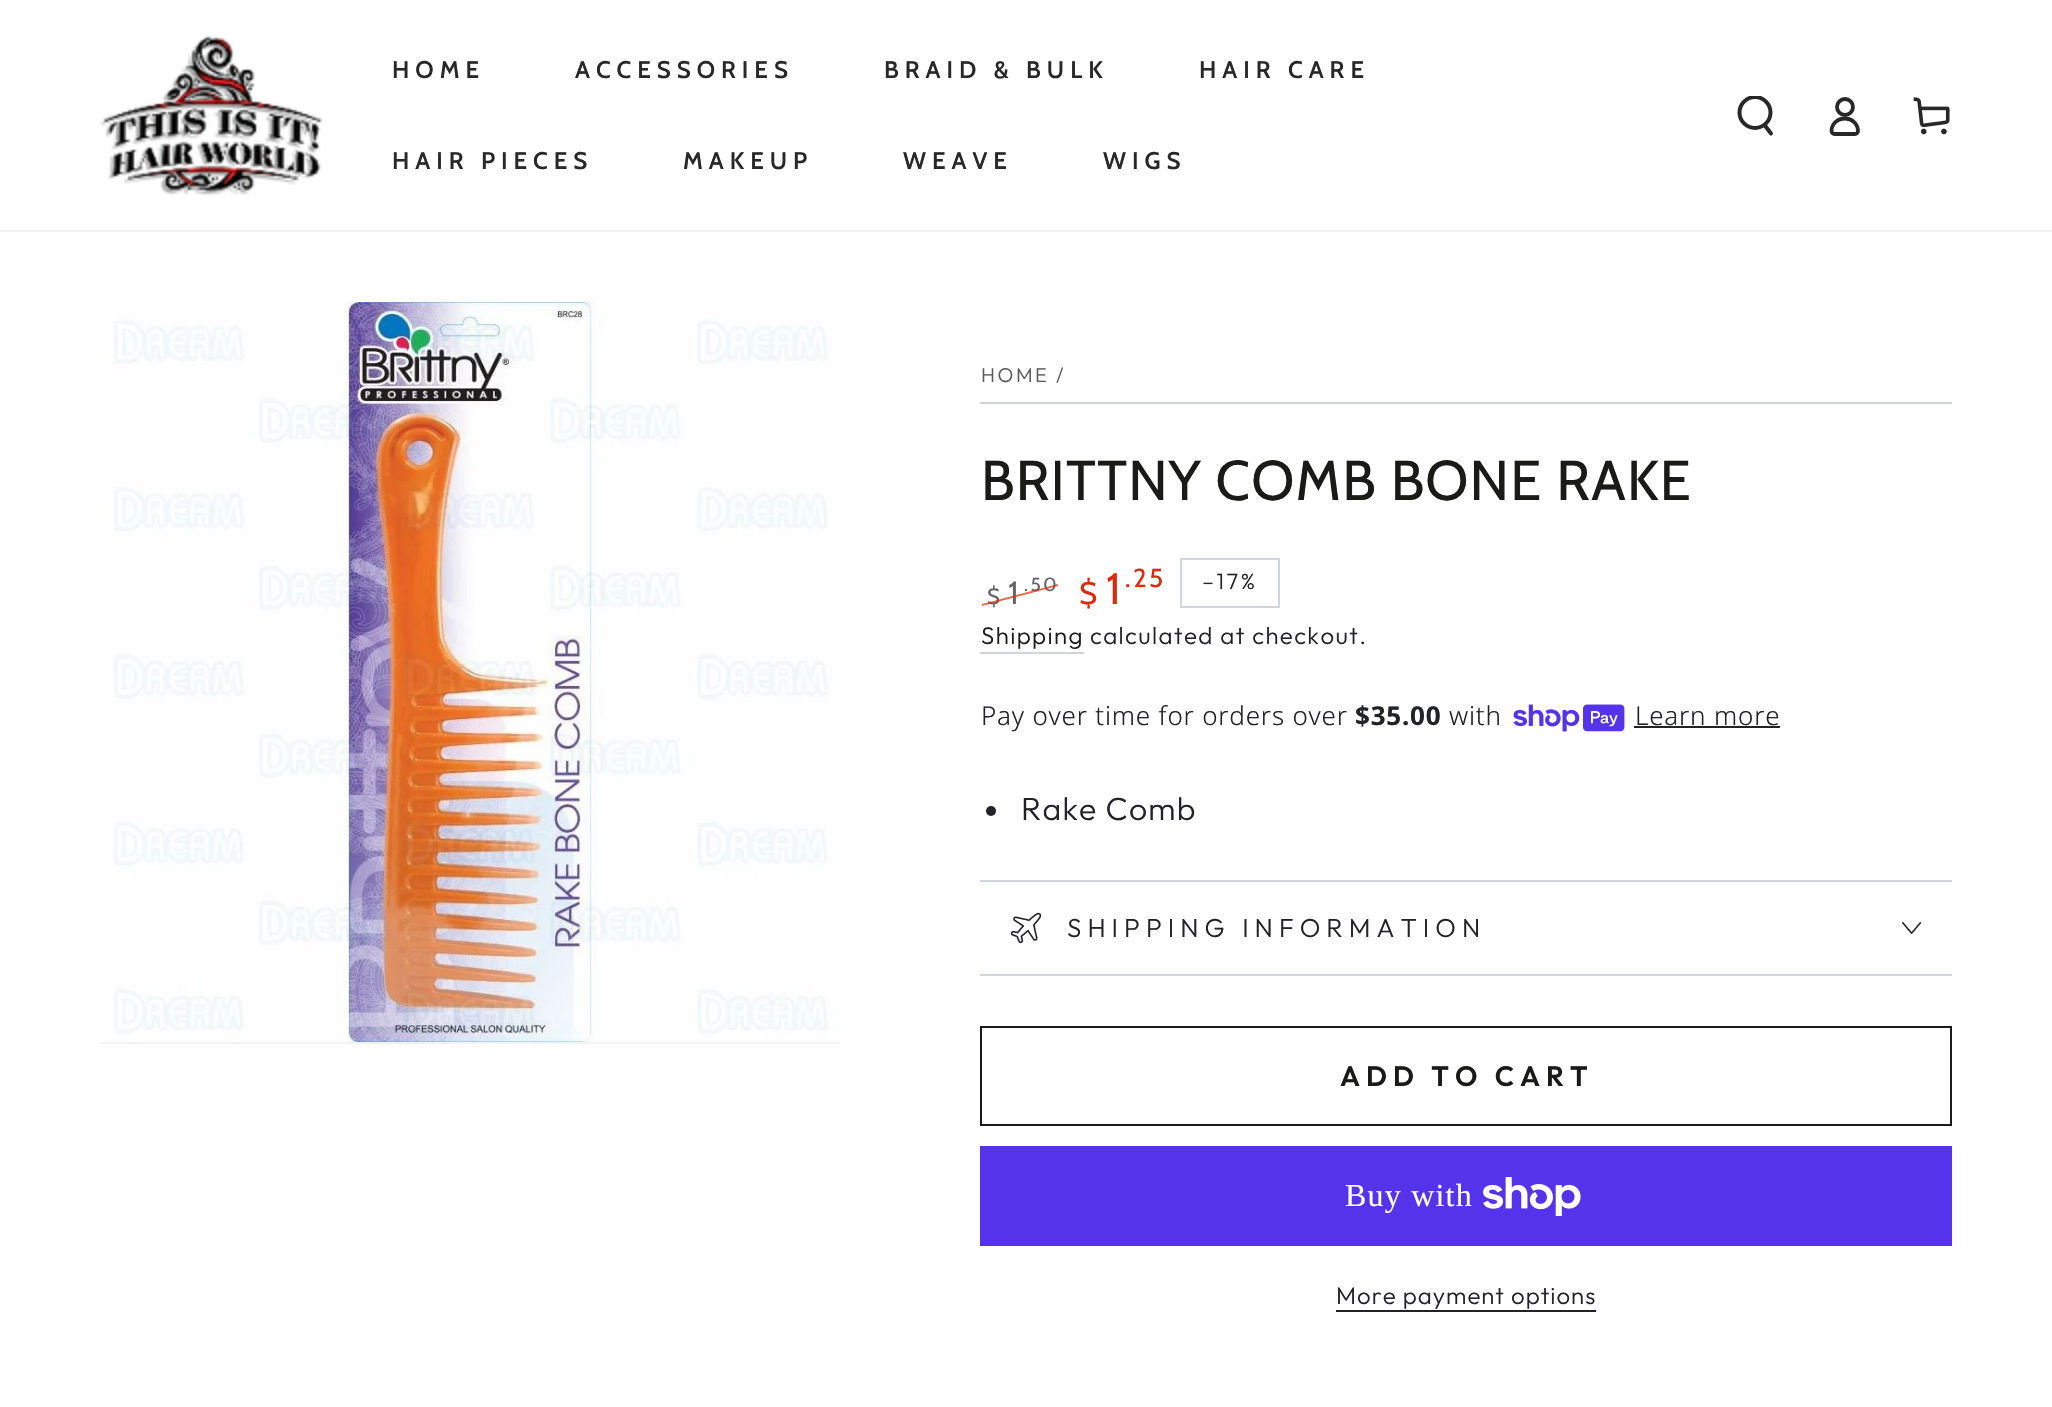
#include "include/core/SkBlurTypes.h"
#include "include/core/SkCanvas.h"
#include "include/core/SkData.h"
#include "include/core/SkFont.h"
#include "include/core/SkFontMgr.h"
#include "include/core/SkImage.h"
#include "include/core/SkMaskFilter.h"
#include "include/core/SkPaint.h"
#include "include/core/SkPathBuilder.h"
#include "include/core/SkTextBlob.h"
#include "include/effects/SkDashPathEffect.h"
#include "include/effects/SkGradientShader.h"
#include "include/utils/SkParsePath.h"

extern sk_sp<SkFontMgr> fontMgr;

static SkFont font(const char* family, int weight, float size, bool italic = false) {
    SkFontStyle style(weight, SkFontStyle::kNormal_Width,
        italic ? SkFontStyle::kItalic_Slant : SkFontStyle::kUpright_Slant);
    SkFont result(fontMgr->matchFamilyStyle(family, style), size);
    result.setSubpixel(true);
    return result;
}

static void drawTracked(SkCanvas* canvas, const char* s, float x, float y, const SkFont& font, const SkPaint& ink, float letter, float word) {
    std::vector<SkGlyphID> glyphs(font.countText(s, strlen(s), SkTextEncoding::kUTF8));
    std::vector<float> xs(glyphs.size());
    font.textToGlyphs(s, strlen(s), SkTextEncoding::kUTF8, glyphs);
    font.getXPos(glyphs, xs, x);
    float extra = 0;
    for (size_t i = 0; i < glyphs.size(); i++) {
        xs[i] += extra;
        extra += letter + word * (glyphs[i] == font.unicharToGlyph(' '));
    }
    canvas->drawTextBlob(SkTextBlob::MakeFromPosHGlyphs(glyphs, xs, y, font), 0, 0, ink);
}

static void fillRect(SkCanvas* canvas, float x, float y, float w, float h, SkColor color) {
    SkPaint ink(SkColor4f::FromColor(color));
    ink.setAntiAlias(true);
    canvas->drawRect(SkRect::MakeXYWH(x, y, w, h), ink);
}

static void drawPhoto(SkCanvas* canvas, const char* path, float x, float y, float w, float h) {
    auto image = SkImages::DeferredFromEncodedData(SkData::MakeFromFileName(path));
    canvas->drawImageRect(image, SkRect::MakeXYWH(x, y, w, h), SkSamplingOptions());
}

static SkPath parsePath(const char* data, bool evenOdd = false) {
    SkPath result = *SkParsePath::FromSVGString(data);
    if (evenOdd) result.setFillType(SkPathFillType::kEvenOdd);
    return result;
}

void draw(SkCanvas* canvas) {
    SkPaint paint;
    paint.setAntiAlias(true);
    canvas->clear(0xFFFFFFFF);
    fillRect(canvas, 0, 230, 2052, 2, 0xFFF2F2F4);
    drawPhoto(canvas, "assets/img1.png", 100, 35, 222, 161);
    SkFont font1 = font("Cabin", 600, 24);
    paint.setColor(0xFF282828);
    drawTracked(canvas, "HOME", 392, 78, font1, paint, 6, 0);
    drawTracked(canvas, "ACCESSORIES", 575, 78, font1, paint, 6, 0);
    drawTracked(canvas, "BRAID & BULK", 884, 78, font1, paint, 6, 0);
    drawTracked(canvas, "HAIR CARE", 1199, 78, font1, paint, 6, 0);
    drawTracked(canvas, "HAIR PIECES", 392, 169, font1, paint, 6, 0);
    drawTracked(canvas, "MAKEUP", 683, 169, font1, paint, 6, 0);
    drawTracked(canvas, "WEAVE", 903, 169, font1, paint, 6, 0);
    drawTracked(canvas, "WIGS", 1103, 169, font1, paint, 6, 0);
    canvas->save();
    canvas->clipRect(SkRect::MakeXYWH(1736, 96, 40, 40));
    paint.setStroke(true);
    paint.setStrokeWidth(4);
    canvas->drawCircle(1755, 112.5f, 15.5f, paint);
    canvas->restore();
    paint.setStrokeCap(SkPaint::kRound_Cap);
    canvas->drawPath(parsePath("M1764.5 125L1771 133.5"), paint);
    paint.setStrokeWidth(3.8f);
    paint.setStrokeCap(SkPaint::kButt_Cap);
    canvas->drawPath(parsePath("M1845 118.5C1837.5 118.5 1831.5 124 1831.5 131C1831.5 132.5 1833 134 1834.5 134H1855C1856.5 134 1858 132.5 1858 131C1858 124 1852 118.5 1845 118.5Z"), paint);
    canvas->drawCircle(1845, 107, 8, paint);
    drawPhoto(canvas, "assets/img2.png", 1913, 97, 37, 38);
    fillRect(canvas, 100, 1042, 740, 2, 0xFFF3F3F3);
    drawPhoto(canvas, "assets/img3.png", 100, 302, 740, 740);
    fillRect(canvas, 980, 402, 972, 2, 0xFFD2D5D9);
    SkFont font2 = font("Outfit", 300, 20);
    paint.setStroke(false);
    paint.setColor(0xFF595A5C);
    drawTracked(canvas, "HOME", 981, 382, font2, paint, 2.5f, 0);
    drawTracked(canvas, "/", 1056, 382, font2, paint, 2.5f, 0);
    SkFont font3 = font("Cabin", 400, 56);
    paint.setColor(0xFF1A1B18);
    drawTracked(canvas, "BRITTNY COMB BONE RAKE", 981, 500, font3, paint, 1.2f, 0);
    SkFont font4 = font("Cabin", 400, 32);
    paint.setColor(0xFF646567);
    drawTracked(canvas, "1", 1008, 604, font4, paint, 2.5f, 0);
    SkFont font5 = font("Cabin", 400, 19);
    drawTracked(canvas, ".50", 1024, 591, font5, paint, 2.5f, 0);
    SkFont font6 = font("Cabin", 400, 22);
    drawTracked(canvas, "$", 987, 604, font6, paint, 2.5f, 0);
    paint.setColor(0xB3D72C0D);
    canvas->drawPath(parsePath("M982 604L1058 584V586L982 606Z"), paint);
    SkFont font7 = font("Cabin", 400, 31);
    paint.setColor(0xFFD72C0D);
    drawTracked(canvas, "$", 1079, 604, font7, paint, 2.5f, 0);
    SkFont font8 = font("Cabin", 400, 44);
    drawTracked(canvas, "1", 1106, 604, font8, paint, 2.5f, 0);
    SkFont font9 = font("Cabin", 400, 26);
    drawTracked(canvas, ".25", 1125, 587, font9, paint, 2.5f, 0);
    paint.setStroke(true);
    paint.setStrokeWidth(2);
    paint.setColor(0xFFD2D5D9);
    canvas->drawRect(SkRect::MakeXYWH(1181, 559, 98, 48), paint);
    SkFont font10 = font("Outfit", 300, 22);
    paint.setStroke(false);
    paint.setColor(0xFF212326);
    drawTracked(canvas, "–17%", 1202, 589, font10, paint, 2.5f, 0);
    SkFont font11 = font("Outfit", 300, 24);
    paint.setColor(0xFF1A1B18);
    drawTracked(canvas, "Shipping", 981, 644, font11, paint, 1.4f, 0);
    fillRect(canvas, 980, 652, 104, 2, 0xFFD2D5D9);
    paint.setColor(0xFF212326);
    drawTracked(canvas, "calculated at checkout.", 1090, 644, font11, paint, 1.4f, 0);
    SkFont font12 = font("Noto Sans", 300, 26);
    drawTracked(canvas, "Pay over time for orders over", 981, 725, font12, paint, 0.8f, 0);
    SkFont font13 = font("Noto Sans", 700, 26);
    drawTracked(canvas, "$35.00", 1355, 725, font13, paint, 0.8f, 0);
    drawTracked(canvas, "with", 1449, 725, font12, paint, 0.8f, 0);
    drawPhoto(canvas, "assets/img4.png", 1513, 704, 112, 28);
    drawTracked(canvas, "Learn more", 1635, 725, font12, paint, 0.8f, 0);
    fillRect(canvas, 1634, 726, 146, 2, 0xFF212326);
    canvas->drawCircle(991, 811, 5, paint);
    SkFont font14 = font("Outfit", 300, 32);
    drawTracked(canvas, "Rake Comb", 1021, 820, font14, paint, 1.2f, 0);
    fillRect(canvas, 980, 880, 972, 2, 0xFFD2D5D9);
    fillRect(canvas, 980, 974, 972, 2, 0xFFD2D5D9);
    drawPhoto(canvas, "assets/img5.png", 1010, 912, 32, 32);
    SkFont font15 = font("Outfit", 300, 26);
    drawTracked(canvas, "SHIPPING INFORMATION", 1067, 937, font15, paint, 6, 0);
    drawPhoto(canvas, "assets/img6.png", 1902, 922, 20, 12);
    paint.setStroke(true);
    paint.setColor(0xFF1A1B18);
    canvas->drawRect(SkRect::MakeXYWH(981, 1027, 970, 98), paint);
    SkFont font16 = font("Outfit", 600, 28);
    paint.setStroke(false);
    drawTracked(canvas, "ADD TO CART", 1340, 1086, font16, paint, 6, 0);
    fillRect(canvas, 980, 1146, 972, 100, 0xFF5433EB);
    SkFont font17 = font("Liberation Serif", 400, 32);
    paint.setColor(0xFFFFFFFF);
    drawTracked(canvas, "Buy with", 1345, 1206, font17, paint, 1.2f, 0);
    drawPhoto(canvas, "assets/img7.png", 1483, 1177, 98, 39);
    paint.setColor(0xFF212326);
    drawTracked(canvas, "More payment options", 1336, 1304, font11, paint, 1, 0);
    fillRect(canvas, 1336, 1310, 260, 2, 0xFF212326);
}
